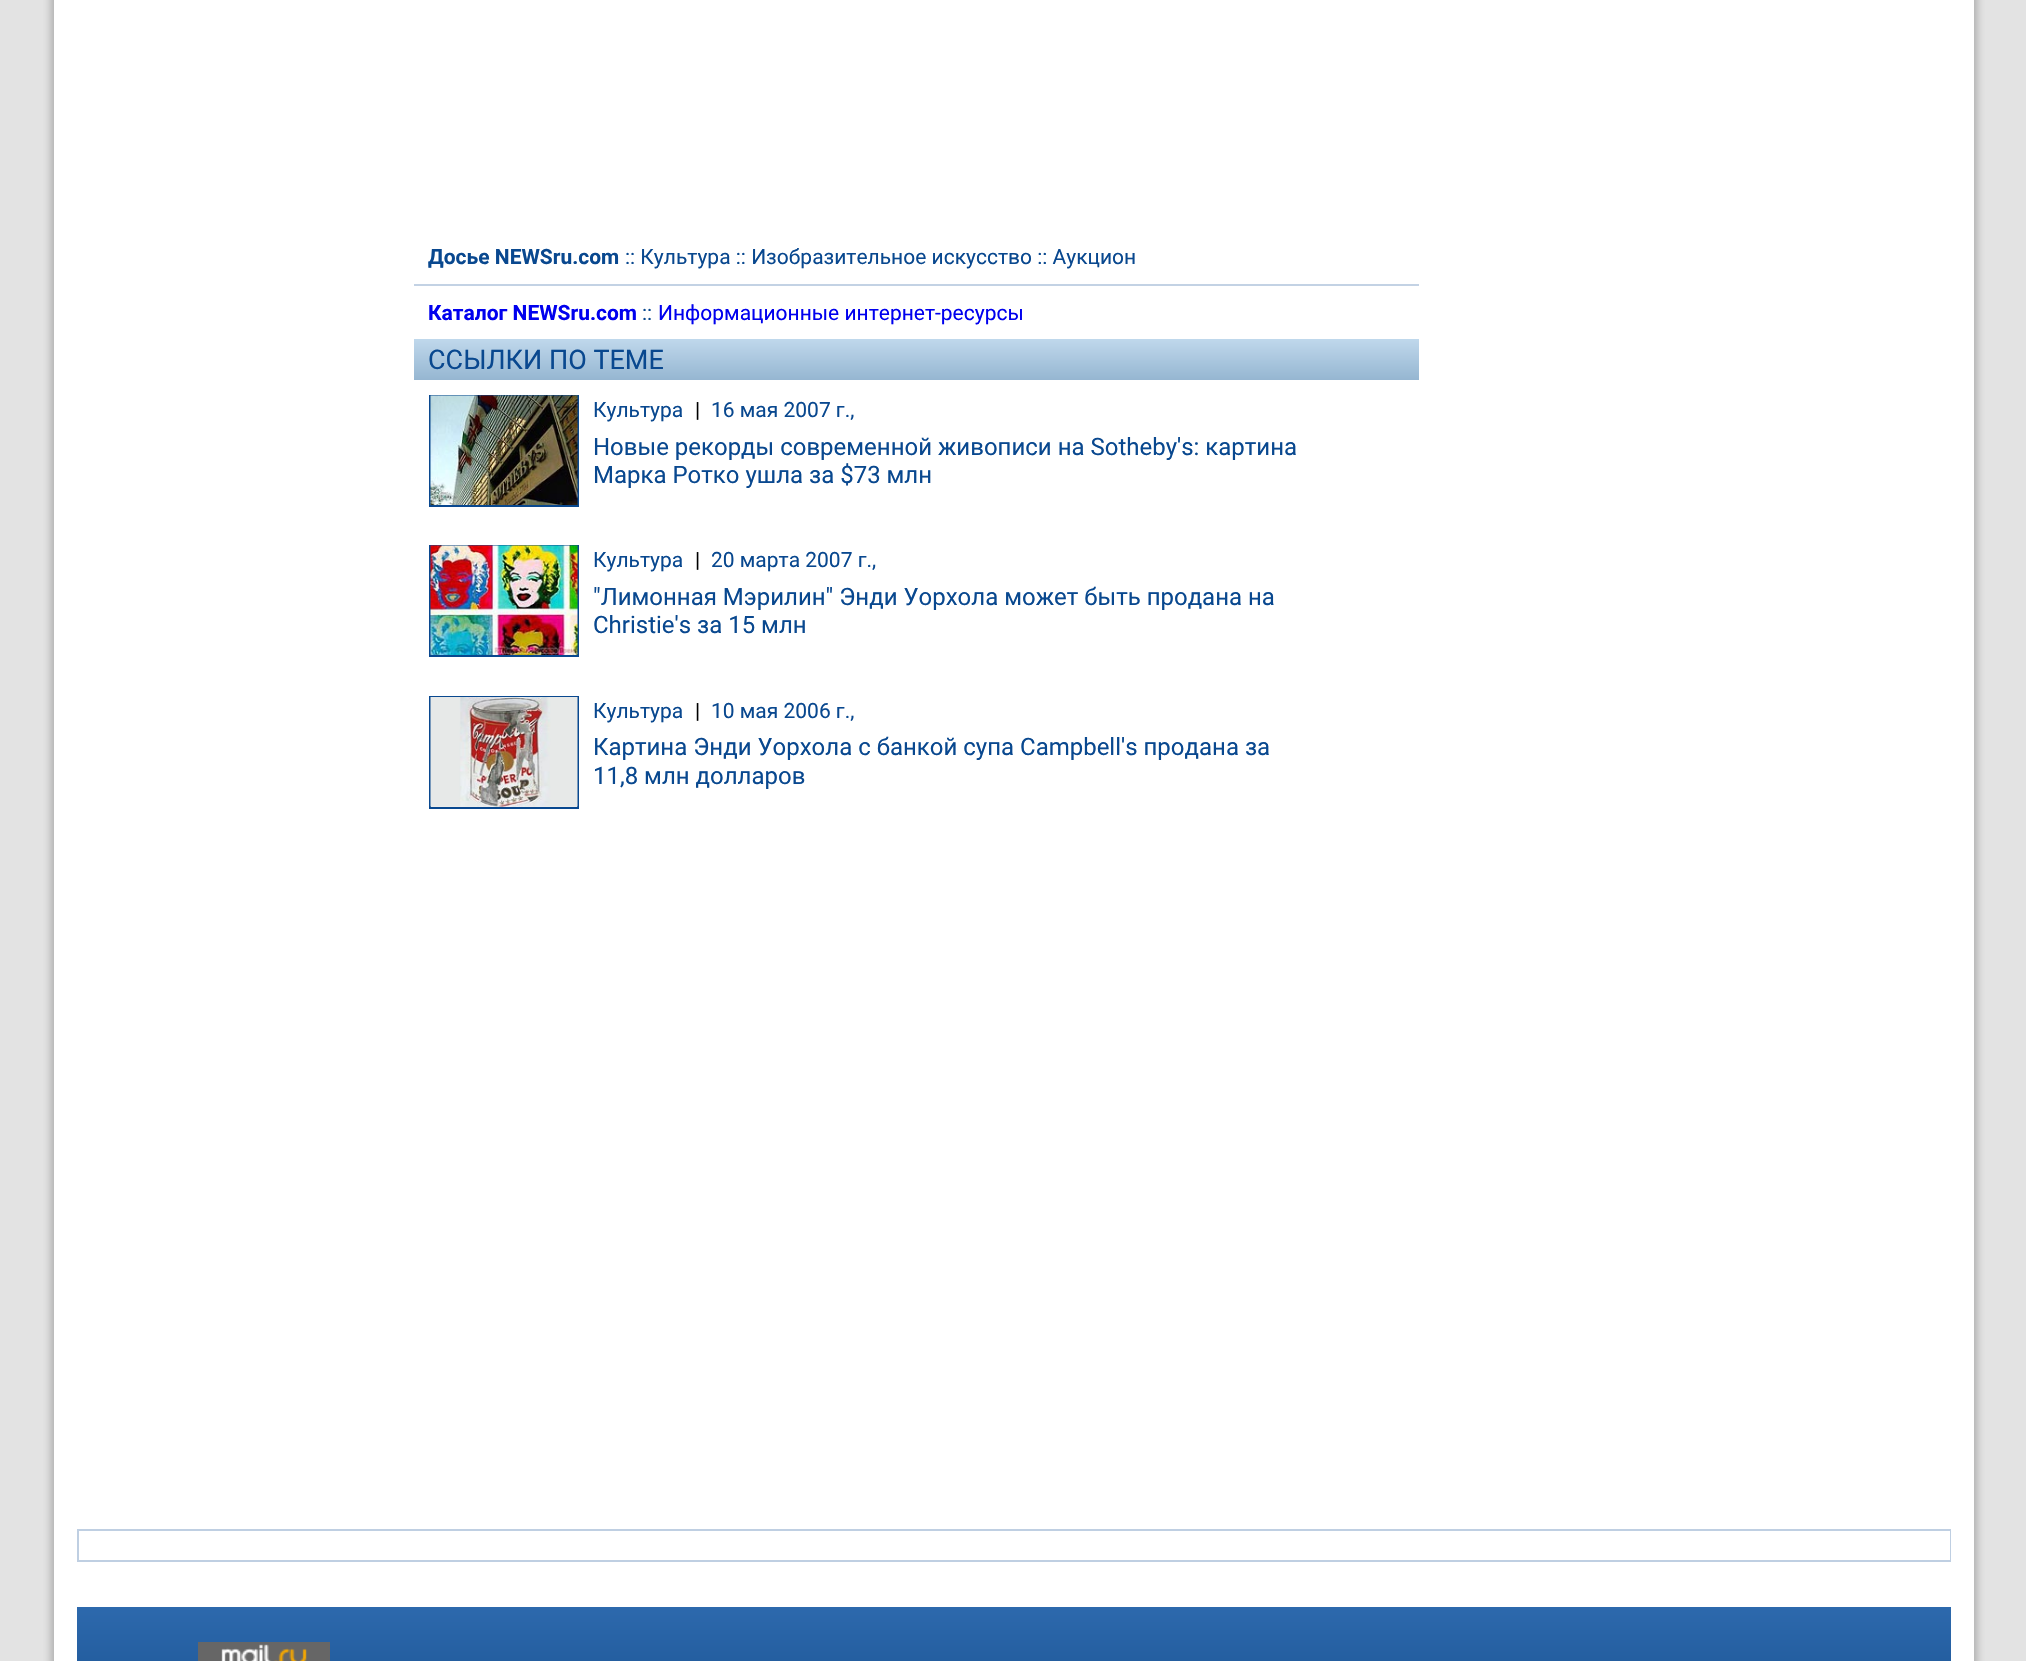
#include "include/core/SkBlurTypes.h"
#include "include/core/SkCanvas.h"
#include "include/core/SkData.h"
#include "include/core/SkFont.h"
#include "include/core/SkFontMgr.h"
#include "include/core/SkImage.h"
#include "include/core/SkMaskFilter.h"
#include "include/core/SkPaint.h"
#include "include/core/SkPathBuilder.h"
#include "include/core/SkTextBlob.h"
#include "include/effects/SkDashPathEffect.h"
#include "include/effects/SkGradientShader.h"
#include "include/utils/SkParsePath.h"

extern sk_sp<SkFontMgr> fontMgr;

static SkFont font(const char* family, int weight, float size, bool italic = false) {
    SkFontStyle style(weight, SkFontStyle::kNormal_Width,
        italic ? SkFontStyle::kItalic_Slant : SkFontStyle::kUpright_Slant);
    SkFont result(fontMgr->matchFamilyStyle(family, style), size);
    result.setSubpixel(true);
    return result;
}

static void drawLabel(SkCanvas* canvas, const char* s, float x, float y, const SkFont& font, SkColor color) {
    SkPaint ink(SkColor4f::FromColor(color));
    ink.setAntiAlias(true);
    canvas->drawString(s, x, y, font, ink);
}

static void fillRect(SkCanvas* canvas, float x, float y, float w, float h, SkColor color) {
    SkPaint ink(SkColor4f::FromColor(color));
    ink.setAntiAlias(true);
    canvas->drawRect(SkRect::MakeXYWH(x, y, w, h), ink);
}

static void drawPhoto(SkCanvas* canvas, const char* path, float x, float y, float w, float h) {
    auto image = SkImages::DeferredFromEncodedData(SkData::MakeFromFileName(path));
    canvas->drawImageRect(image, SkRect::MakeXYWH(x, y, w, h), SkSamplingOptions());
}

void draw(SkCanvas* canvas) {
    SkPaint paint;
    paint.setAntiAlias(true);
    canvas->clear(0xFFE3E3E3);
    fillRect(canvas, 77, 0, 1874, 1607, 0xFFFFFFFF);
    canvas->save();
    canvas->clipRect(SkRect::MakeXYWH(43, 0, 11, 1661));
    paint.setColor(0xFFADADAD);
    paint.setMaskFilter(SkMaskFilter::MakeBlur(kNormal_SkBlurStyle, 4));
    canvas->drawRect(SkRect::MakeXYWH(51, -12, 1881, 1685), paint);
    paint.setMaskFilter(nullptr);
    canvas->restore();
    canvas->save();
    canvas->clipRect(SkRect::MakeXYWH(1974, 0, 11, 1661));
    paint.setMaskFilter(SkMaskFilter::MakeBlur(kNormal_SkBlurStyle, 4));
    canvas->drawRect(SkRect::MakeXYWH(96, -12, 1881, 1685), paint);
    paint.setMaskFilter(nullptr);
    canvas->restore();
    fillRect(canvas, 414, 284, 1005, 2, 0xFFC3D2E4);
    {
        const SkColor colors[] = {0xFFC0D8EC, 0xFF95B6D1};
        const float stops[] = {0, 1};
        const SkPoint ends[] = {{917, 339}, {917, 380}};
        paint.setShader(SkGradientShader::MakeLinear(ends, colors, stops, 2, SkTileMode::kClamp));
        paint.setAlpha(255);
    }
    canvas->drawRect(SkRect::MakeXYWH(414, 339, 1005, 41), paint);
    paint.setStroke(true);
    paint.setStrokeWidth(2);
    paint.setShader(nullptr);
    paint.setColor(0xFF09488F);
    canvas->drawRect(SkRect::MakeXYWH(430, 396, 148, 110), paint);
    drawPhoto(canvas, "assets/img1.png", 430, 395, 148, 110);
    canvas->drawRect(SkRect::MakeXYWH(430, 546, 148, 110), paint);
    drawPhoto(canvas, "assets/img2.png", 430, 545, 148, 110);
    fillRect(canvas, 431, 806, 146, 1, 0xFFEEEEEE);
    canvas->drawRect(SkRect::MakeXYWH(430, 697, 148, 111), paint);
    drawPhoto(canvas, "assets/img3.png", 430, 697, 148, 110);
    paint.setColor(0xFFBFCFE2);
    canvas->drawRect(SkRect::MakeXYWH(78, 1530, 1873, 31), paint);
    paint.setStroke(false);
    {
        const SkColor colors[] = {0xFF2D69AD, 0xFF00346D};
        const float stops[] = {0, 1};
        const SkPoint ends[] = {{1014, 1607}, {1014, 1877}};
        paint.setShader(SkGradientShader::MakeLinear(ends, colors, stops, 2, SkTileMode::kClamp));
        paint.setAlpha(255);
    }
    canvas->drawRect(SkRect::MakeXYWH(77, 1607, 1874, 54), paint);
    drawPhoto(canvas, "assets/img4.png", 198, 1642, 132, 19);
    paint.setStroke(true);
    paint.setStrokeWidth(23);
    paint.setShader(nullptr);
    paint.setColor(0xFFFFFFFF);
    canvas->drawRect(SkRect::MakeXYWH(65.5f, -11.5f, 1897, 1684), paint);
    SkFont font1 = font("Roboto", 700, 21);
    drawLabel(canvas, "Досье NEWSru.com", 428, 264, font1, 0xFF09488F);
    SkFont font2 = font("Roboto", 400, 21);
    drawLabel(canvas, ":: Культура :: Изобразительное искусство :: Аукцион", 625, 264, font2, 0xFF09488F);
    drawLabel(canvas, "Каталог NEWSru.com", 428, 320, font1, 0xFF0000EE);
    drawLabel(canvas, "::", 642, 320, font2, 0xFF09488F);
    drawLabel(canvas, "Информационные интернет-ресурсы", 658, 320, font2, 0xFF0000EE);
    SkFont font3 = font("Roboto", 400, 27);
    drawLabel(canvas, "ССЫЛКИ ПО ТЕМЕ", 428, 369, font3, 0xFF09488F);
    drawLabel(canvas, "Культура", 593, 417, font2, 0xFF09488F);
    drawLabel(canvas, "|", 695, 417, font2, 0xFF000000);
    drawLabel(canvas, "16 мая 2007 г.,", 711, 417, font2, 0xFF09488F);
    SkFont font4 = font("Roboto", 400, 24);
    drawLabel(canvas, "Новые рекорды современной живописи на Sotheby's: картина", 593, 455, font4, 0xFF09488F);
    drawLabel(canvas, "Марка Ротко ушла за $73 млн", 593, 483, font4, 0xFF09488F);
    drawLabel(canvas, "Культура", 593, 567, font2, 0xFF09488F);
    drawLabel(canvas, "|", 695, 567, font2, 0xFF000000);
    drawLabel(canvas, "20 марта 2007 г.,", 711, 567, font2, 0xFF09488F);
    drawLabel(canvas, "\"Лимонная Мэрилин\" Энди Уорхола может быть продана на", 593, 605, font4, 0xFF09488F);
    drawLabel(canvas, "Christie's за 15 млн", 593, 633, font4, 0xFF09488F);
    drawLabel(canvas, "Культура", 593, 718, font2, 0xFF09488F);
    drawLabel(canvas, "|", 695, 718, font2, 0xFF000000);
    drawLabel(canvas, "10 мая 2006 г.,", 711, 718, font2, 0xFF09488F);
    drawLabel(canvas, "Картина Энди Уорхола с банкой супа Campbell's продана за", 593, 755, font4, 0xFF09488F);
    drawLabel(canvas, "11,8 млн долларов", 593, 784, font4, 0xFF09488F);
}
